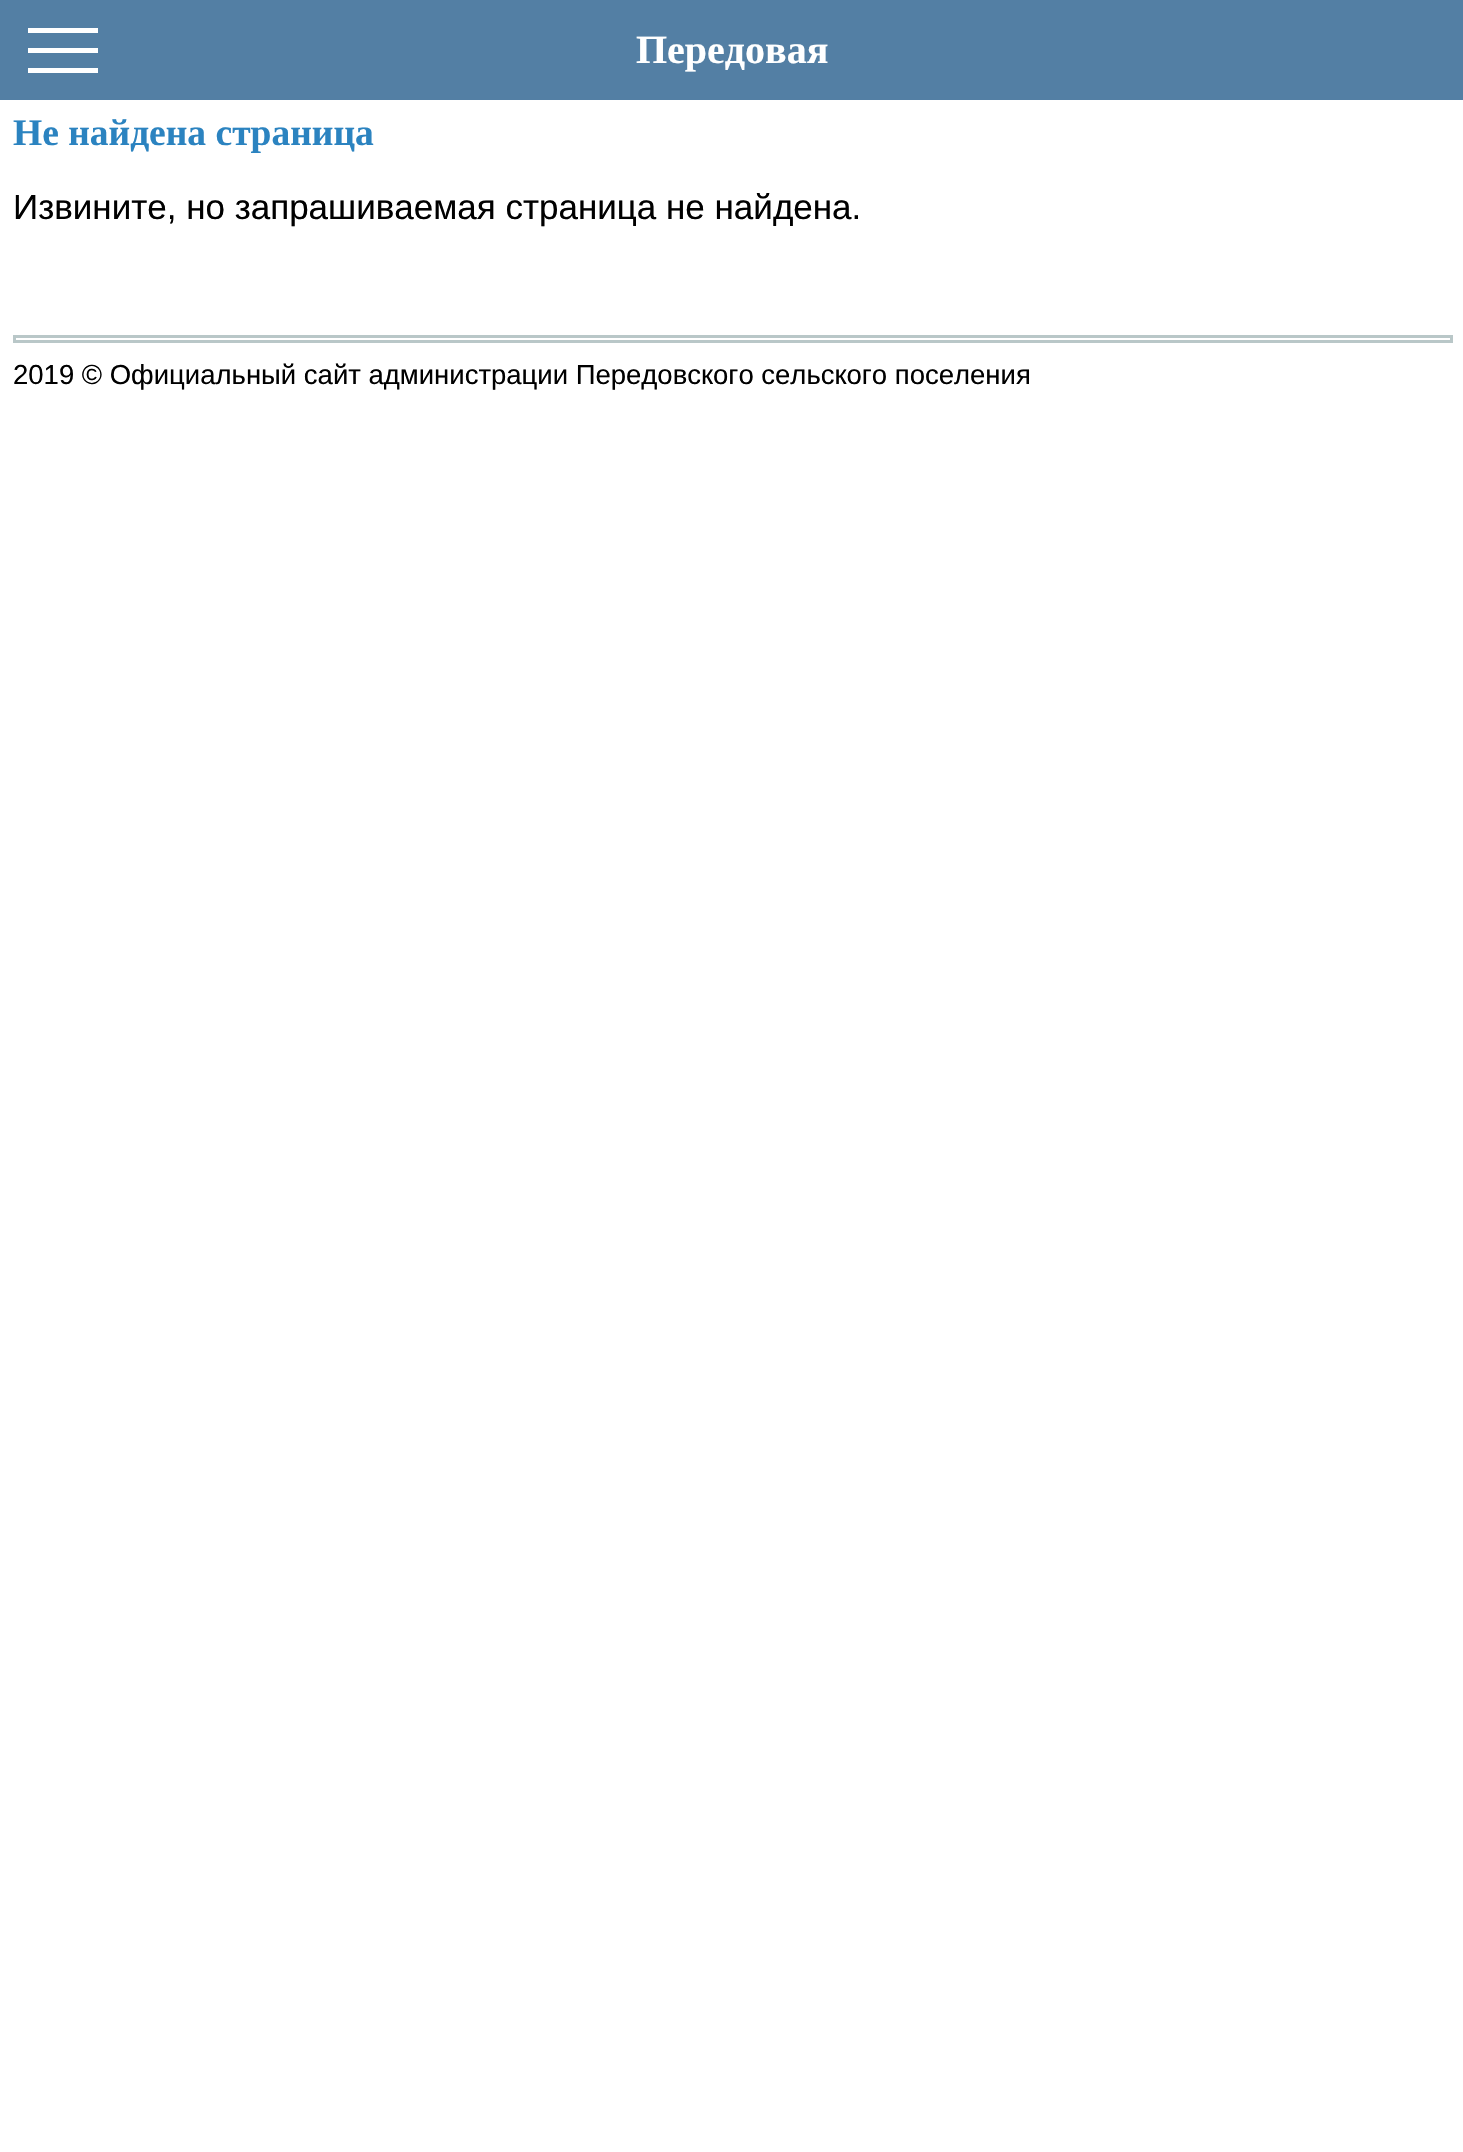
#include "include/core/SkBlurTypes.h"
#include "include/core/SkCanvas.h"
#include "include/core/SkData.h"
#include "include/core/SkFont.h"
#include "include/core/SkFontMgr.h"
#include "include/core/SkImage.h"
#include "include/core/SkMaskFilter.h"
#include "include/core/SkPaint.h"
#include "include/core/SkPathBuilder.h"
#include "include/core/SkTextBlob.h"
#include "include/effects/SkDashPathEffect.h"
#include "include/effects/SkGradientShader.h"
#include "include/utils/SkParsePath.h"

extern sk_sp<SkFontMgr> fontMgr;

static SkFont font(const char* family, int weight, float size, bool italic = false) {
    SkFontStyle style(weight, SkFontStyle::kNormal_Width,
        italic ? SkFontStyle::kItalic_Slant : SkFontStyle::kUpright_Slant);
    SkFont result(fontMgr->matchFamilyStyle(family, style), size);
    result.setSubpixel(true);
    return result;
}

static void drawLabel(SkCanvas* canvas, const char* s, float x, float y, const SkFont& font, SkColor color) {
    SkPaint ink(SkColor4f::FromColor(color));
    ink.setAntiAlias(true);
    canvas->drawString(s, x, y, font, ink);
}

static void fillRect(SkCanvas* canvas, float x, float y, float w, float h, SkColor color) {
    SkPaint ink(SkColor4f::FromColor(color));
    ink.setAntiAlias(true);
    canvas->drawRect(SkRect::MakeXYWH(x, y, w, h), ink);
}

void draw(SkCanvas* canvas) {
    SkPaint paint;
    paint.setAntiAlias(true);
    canvas->clear(0xFFFFFFFF);
    fillRect(canvas, 0, 0, 1463, 100, 0xFF537FA4);
    fillRect(canvas, 28, 28, 70, 5, 0xFFFFFFFF);
    fillRect(canvas, 28, 48, 70, 5, 0xFFFFFFFF);
    fillRect(canvas, 28, 68, 70, 5, 0xFFFFFFFF);
    SkFont font1 = font("Liberation Serif", 700, 40);
    drawLabel(canvas, "Передовая", 636, 63, font1, 0xFFFFFFFF);
    SkFont font2 = font("Liberation Serif", 700, 37.5f);
    drawLabel(canvas, "Не найдена страница", 13, 145, font2, 0xFF2B83C0);
    SkFont font3 = font("Liberation Sans", 400, 35);
    drawLabel(canvas, "Извините, но запрашиваемая страница не найдена.", 13, 219, font3, 0xFF000000);
    paint.setStroke(true);
    paint.setStrokeWidth(3);
    paint.setColor(0xFFB9C7C8);
    canvas->drawRect(SkRect::MakeXYWH(14.5f, 336.5f, 1437, 5), paint);
    SkFont font4 = font("Liberation Sans", 400, 27.5f);
    drawLabel(canvas, "2019 © Официальный сайт администрации Передовского сельского поселения", 13, 384, font4, 0xFF000000);
}
